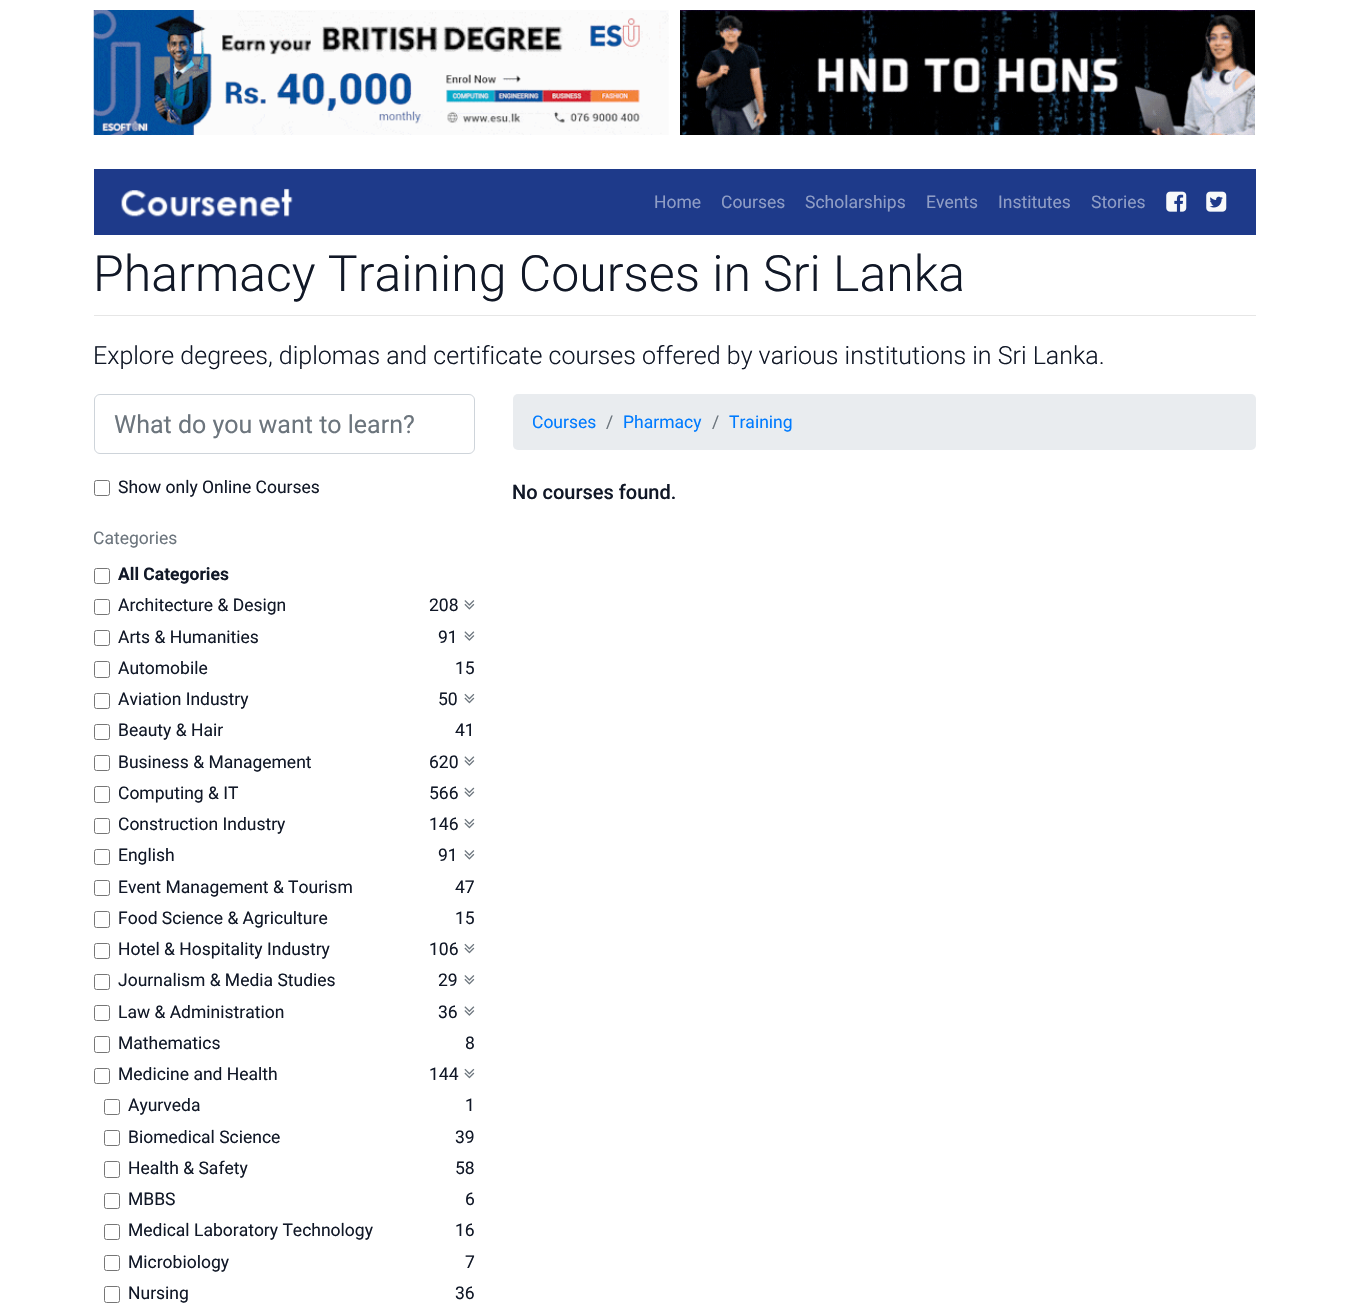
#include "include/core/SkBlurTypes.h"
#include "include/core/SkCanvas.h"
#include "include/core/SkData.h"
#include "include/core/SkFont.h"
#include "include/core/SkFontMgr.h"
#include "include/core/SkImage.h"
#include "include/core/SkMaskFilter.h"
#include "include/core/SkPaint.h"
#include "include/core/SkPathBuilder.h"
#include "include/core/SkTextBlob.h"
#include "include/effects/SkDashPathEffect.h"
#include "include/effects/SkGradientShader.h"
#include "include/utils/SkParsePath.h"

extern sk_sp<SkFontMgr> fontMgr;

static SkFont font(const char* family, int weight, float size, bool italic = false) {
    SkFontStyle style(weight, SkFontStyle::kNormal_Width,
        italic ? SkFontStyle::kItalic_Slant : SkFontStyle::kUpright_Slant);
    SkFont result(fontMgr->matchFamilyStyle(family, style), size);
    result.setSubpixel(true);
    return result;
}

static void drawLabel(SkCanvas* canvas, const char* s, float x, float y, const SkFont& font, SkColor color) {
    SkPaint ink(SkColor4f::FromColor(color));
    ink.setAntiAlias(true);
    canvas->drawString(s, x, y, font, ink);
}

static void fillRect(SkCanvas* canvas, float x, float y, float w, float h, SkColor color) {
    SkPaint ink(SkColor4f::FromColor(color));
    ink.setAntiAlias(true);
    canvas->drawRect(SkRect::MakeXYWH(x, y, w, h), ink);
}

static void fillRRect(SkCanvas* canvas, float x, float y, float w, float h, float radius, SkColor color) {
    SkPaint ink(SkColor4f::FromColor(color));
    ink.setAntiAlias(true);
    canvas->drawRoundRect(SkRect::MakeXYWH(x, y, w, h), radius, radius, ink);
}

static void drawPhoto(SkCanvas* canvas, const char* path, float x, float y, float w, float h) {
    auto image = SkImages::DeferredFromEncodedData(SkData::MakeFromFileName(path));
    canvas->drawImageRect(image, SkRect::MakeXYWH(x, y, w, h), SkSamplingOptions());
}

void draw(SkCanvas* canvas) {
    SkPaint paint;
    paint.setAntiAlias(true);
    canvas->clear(0xFFFFFFFF);
    drawPhoto(canvas, "assets/img1.png", 93, 10, 576, 125);
    drawPhoto(canvas, "assets/img2.png", 680, 10, 575, 125);
    fillRect(canvas, 94, 169, 1162, 66, 0xFF1E3A8A);
    drawPhoto(canvas, "assets/img3.png", 121, 188, 172, 29);
    SkFont font1 = font("Roboto", 400, 17.5f);
    drawLabel(canvas, "Home", 654, 208, font1, 0xFF8F9DC5);
    drawLabel(canvas, "Courses", 721, 208, font1, 0xFF8F9DC5);
    drawLabel(canvas, "Scholarships", 805, 208, font1, 0xFF8F9DC5);
    drawLabel(canvas, "Events", 926, 208, font1, 0xFF8F9DC5);
    drawLabel(canvas, "Institutes", 998, 208, font1, 0xFF8F9DC5);
    drawLabel(canvas, "Stories", 1091, 208, font1, 0xFF8F9DC5);
    drawPhoto(canvas, "assets/img4.png", 1166, 191, 21, 21);
    drawPhoto(canvas, "assets/img5.png", 1206, 191, 21, 21);
    SkFont font2 = font("Roboto", 300, 50);
    drawLabel(canvas, "Pharmacy Training Courses in Sri Lanka", 93, 291, font2, 0xFF111827);
    fillRect(canvas, 94, 315, 1162, 1, 0xFFE6E6E6);
    SkFont font3 = font("Roboto", 300, 25);
    drawLabel(canvas, "Explore degrees, diplomas and certificate courses offered by various institutions in Sri Lanka.", 93, 364, font3, 0xFF111827);
    paint.setStroke(true);
    paint.setStrokeWidth(1);
    paint.setColor(0xFFCED4DA);
    canvas->drawRoundRect(SkRect::MakeXYWH(94.5f, 394.5f, 380, 59), 5.5f, 5.5f, paint);
    SkFont font4 = font("Roboto", 400, 25);
    drawLabel(canvas, "What do you want to learn?", 114, 433, font4, 0xFF6C757D);
    paint.setColor(0xFF767676);
    canvas->drawRoundRect(SkRect::MakeXYWH(94.5f, 480.5f, 15, 15), 2, 2, paint);
    drawLabel(canvas, "Show only Online Courses", 118, 493, font1, 0xFF111827);
    drawLabel(canvas, "Categories", 93, 544, font1, 0xFF6C757D);
    canvas->drawRoundRect(SkRect::MakeXYWH(94.5f, 568.5f, 15, 15), 2, 2, paint);
    SkFont font5 = font("Roboto", 700, 17.5f);
    drawLabel(canvas, "All Categories", 118, 580, font5, 0xFF111827);
    canvas->drawRoundRect(SkRect::MakeXYWH(94.5f, 599.5f, 15, 15), 2, 2, paint);
    drawLabel(canvas, "Architecture & Design", 118, 611, font1, 0xFF111827);
    drawLabel(canvas, "208", 429, 611, font1, 0xFF111827);
    drawPhoto(canvas, "assets/img6.png", 464, 600, 11, 10);
    canvas->drawRoundRect(SkRect::MakeXYWH(94.5f, 630.5f, 15, 15), 2, 2, paint);
    drawLabel(canvas, "Arts & Humanities", 118, 643, font1, 0xFF111827);
    drawLabel(canvas, "91", 438, 643, font1, 0xFF111827);
    drawPhoto(canvas, "assets/img7.png", 464, 631, 11, 10);
    canvas->drawRoundRect(SkRect::MakeXYWH(94.5f, 661.5f, 15, 16), 2, 2, paint);
    drawLabel(canvas, "Automobile", 118, 674, font1, 0xFF111827);
    drawLabel(canvas, "15", 455, 674, font1, 0xFF111827);
    canvas->drawRoundRect(SkRect::MakeXYWH(94.5f, 693.5f, 15, 15), 2, 2, paint);
    drawLabel(canvas, "Aviation Industry", 118, 705, font1, 0xFF111827);
    drawLabel(canvas, "50", 438, 705, font1, 0xFF111827);
    drawPhoto(canvas, "assets/img8.png", 464, 693, 11, 11);
    canvas->drawRoundRect(SkRect::MakeXYWH(94.5f, 724.5f, 15, 15), 2, 2, paint);
    drawLabel(canvas, "Beauty & Hair", 118, 736, font1, 0xFF111827);
    drawLabel(canvas, "41", 455, 736, font1, 0xFF111827);
    canvas->drawRoundRect(SkRect::MakeXYWH(94.5f, 755.5f, 15, 15), 2, 2, paint);
    drawLabel(canvas, "Business & Management", 118, 768, font1, 0xFF111827);
    drawLabel(canvas, "620", 429, 768, font1, 0xFF111827);
    drawPhoto(canvas, "assets/img7.png", 464, 756, 11, 10);
    canvas->drawRoundRect(SkRect::MakeXYWH(94.5f, 786.5f, 15, 16), 2, 2, paint);
    drawLabel(canvas, "Computing & IT", 118, 799, font1, 0xFF111827);
    drawLabel(canvas, "566", 429, 799, font1, 0xFF111827);
    drawPhoto(canvas, "assets/img9.png", 464, 787, 11, 10);
    canvas->drawRoundRect(SkRect::MakeXYWH(94.5f, 818.5f, 15, 15), 2, 2, paint);
    drawLabel(canvas, "Construction Industry", 118, 830, font1, 0xFF111827);
    drawLabel(canvas, "146", 429, 830, font1, 0xFF111827);
    drawPhoto(canvas, "assets/img8.png", 464, 818, 11, 11);
    canvas->drawRoundRect(SkRect::MakeXYWH(94.5f, 849.5f, 15, 15), 2, 2, paint);
    drawLabel(canvas, "English", 118, 861, font1, 0xFF111827);
    drawLabel(canvas, "91", 438, 861, font1, 0xFF111827);
    drawPhoto(canvas, "assets/img6.png", 464, 850, 11, 10);
    canvas->drawRoundRect(SkRect::MakeXYWH(94.5f, 880.5f, 15, 15), 2, 2, paint);
    drawLabel(canvas, "Event Management & Tourism", 118, 893, font1, 0xFF111827);
    drawLabel(canvas, "47", 455, 893, font1, 0xFF111827);
    canvas->drawRoundRect(SkRect::MakeXYWH(94.5f, 911.5f, 15, 16), 2, 2, paint);
    drawLabel(canvas, "Food Science & Agriculture", 118, 924, font1, 0xFF111827);
    drawLabel(canvas, "15", 455, 924, font1, 0xFF111827);
    canvas->drawRoundRect(SkRect::MakeXYWH(94.5f, 943.5f, 15, 15), 2, 2, paint);
    drawLabel(canvas, "Hotel & Hospitality Industry", 118, 955, font1, 0xFF111827);
    drawLabel(canvas, "106", 429, 955, font1, 0xFF111827);
    drawPhoto(canvas, "assets/img8.png", 464, 943, 11, 11);
    canvas->drawRoundRect(SkRect::MakeXYWH(94.5f, 974.5f, 15, 15), 2, 2, paint);
    drawLabel(canvas, "Journalism & Media Studies", 118, 986, font1, 0xFF111827);
    drawLabel(canvas, "29", 438, 986, font1, 0xFF111827);
    drawPhoto(canvas, "assets/img6.png", 464, 975, 11, 10);
    canvas->drawRoundRect(SkRect::MakeXYWH(94.5f, 1005.5f, 15, 15), 2, 2, paint);
    drawLabel(canvas, "Law & Administration", 118, 1018, font1, 0xFF111827);
    drawLabel(canvas, "36", 438, 1018, font1, 0xFF111827);
    drawPhoto(canvas, "assets/img7.png", 464, 1006, 11, 10);
    canvas->drawRoundRect(SkRect::MakeXYWH(94.5f, 1036.5f, 15, 16), 2, 2, paint);
    drawLabel(canvas, "Mathematics", 118, 1049, font1, 0xFF111827);
    drawLabel(canvas, "8", 465, 1049, font1, 0xFF111827);
    canvas->drawRoundRect(SkRect::MakeXYWH(94.5f, 1068.5f, 15, 15), 2, 2, paint);
    drawLabel(canvas, "Medicine and Health", 118, 1080, font1, 0xFF111827);
    drawLabel(canvas, "144", 429, 1080, font1, 0xFF111827);
    drawPhoto(canvas, "assets/img8.png", 464, 1068, 11, 11);
    canvas->drawRoundRect(SkRect::MakeXYWH(104.5f, 1099.5f, 15, 15), 2, 2, paint);
    drawLabel(canvas, "Ayurveda", 128, 1111, font1, 0xFF111827);
    drawLabel(canvas, "1", 465, 1111, font1, 0xFF111827);
    canvas->drawRoundRect(SkRect::MakeXYWH(104.5f, 1130.5f, 15, 15), 2, 2, paint);
    drawLabel(canvas, "Biomedical Science", 128, 1143, font1, 0xFF111827);
    drawLabel(canvas, "39", 455, 1143, font1, 0xFF111827);
    canvas->drawRoundRect(SkRect::MakeXYWH(104.5f, 1161.5f, 15, 16), 2, 2, paint);
    drawLabel(canvas, "Health & Safety", 128, 1174, font1, 0xFF111827);
    drawLabel(canvas, "58", 455, 1174, font1, 0xFF111827);
    canvas->drawRoundRect(SkRect::MakeXYWH(104.5f, 1193.5f, 15, 15), 2, 2, paint);
    drawLabel(canvas, "MBBS", 128, 1205, font1, 0xFF111827);
    drawLabel(canvas, "6", 465, 1205, font1, 0xFF111827);
    canvas->drawRoundRect(SkRect::MakeXYWH(104.5f, 1224.5f, 15, 15), 2, 2, paint);
    drawLabel(canvas, "Medical Laboratory Technology", 128, 1236, font1, 0xFF111827);
    drawLabel(canvas, "16", 455, 1236, font1, 0xFF111827);
    canvas->drawRoundRect(SkRect::MakeXYWH(104.5f, 1255.5f, 15, 15), 2, 2, paint);
    drawLabel(canvas, "Microbiology", 128, 1268, font1, 0xFF111827);
    drawLabel(canvas, "7", 465, 1268, font1, 0xFF111827);
    canvas->drawRoundRect(SkRect::MakeXYWH(104.5f, 1286.5f, 15, 16), 2, 2, paint);
    drawLabel(canvas, "Nursing", 128, 1299, font1, 0xFF111827);
    drawLabel(canvas, "36", 455, 1299, font1, 0xFF111827);
    fillRRect(canvas, 513, 394, 743, 56, 5, 0xFFE9ECEF);
    drawLabel(canvas, "Courses", 532, 428, font1, 0xFF007BFF);
    drawLabel(canvas, "/", 606, 428, font1, 0xFF6C757D);
    drawLabel(canvas, "Pharmacy", 623, 428, font1, 0xFF007BFF);
    drawLabel(canvas, "/", 712, 428, font1, 0xFF6C757D);
    drawLabel(canvas, "Training", 729, 428, font1, 0xFF007BFF);
    SkFont font6 = font("Roboto", 500, 20);
    drawLabel(canvas, "No courses found.", 512, 499, font6, 0xFF111827);
}
